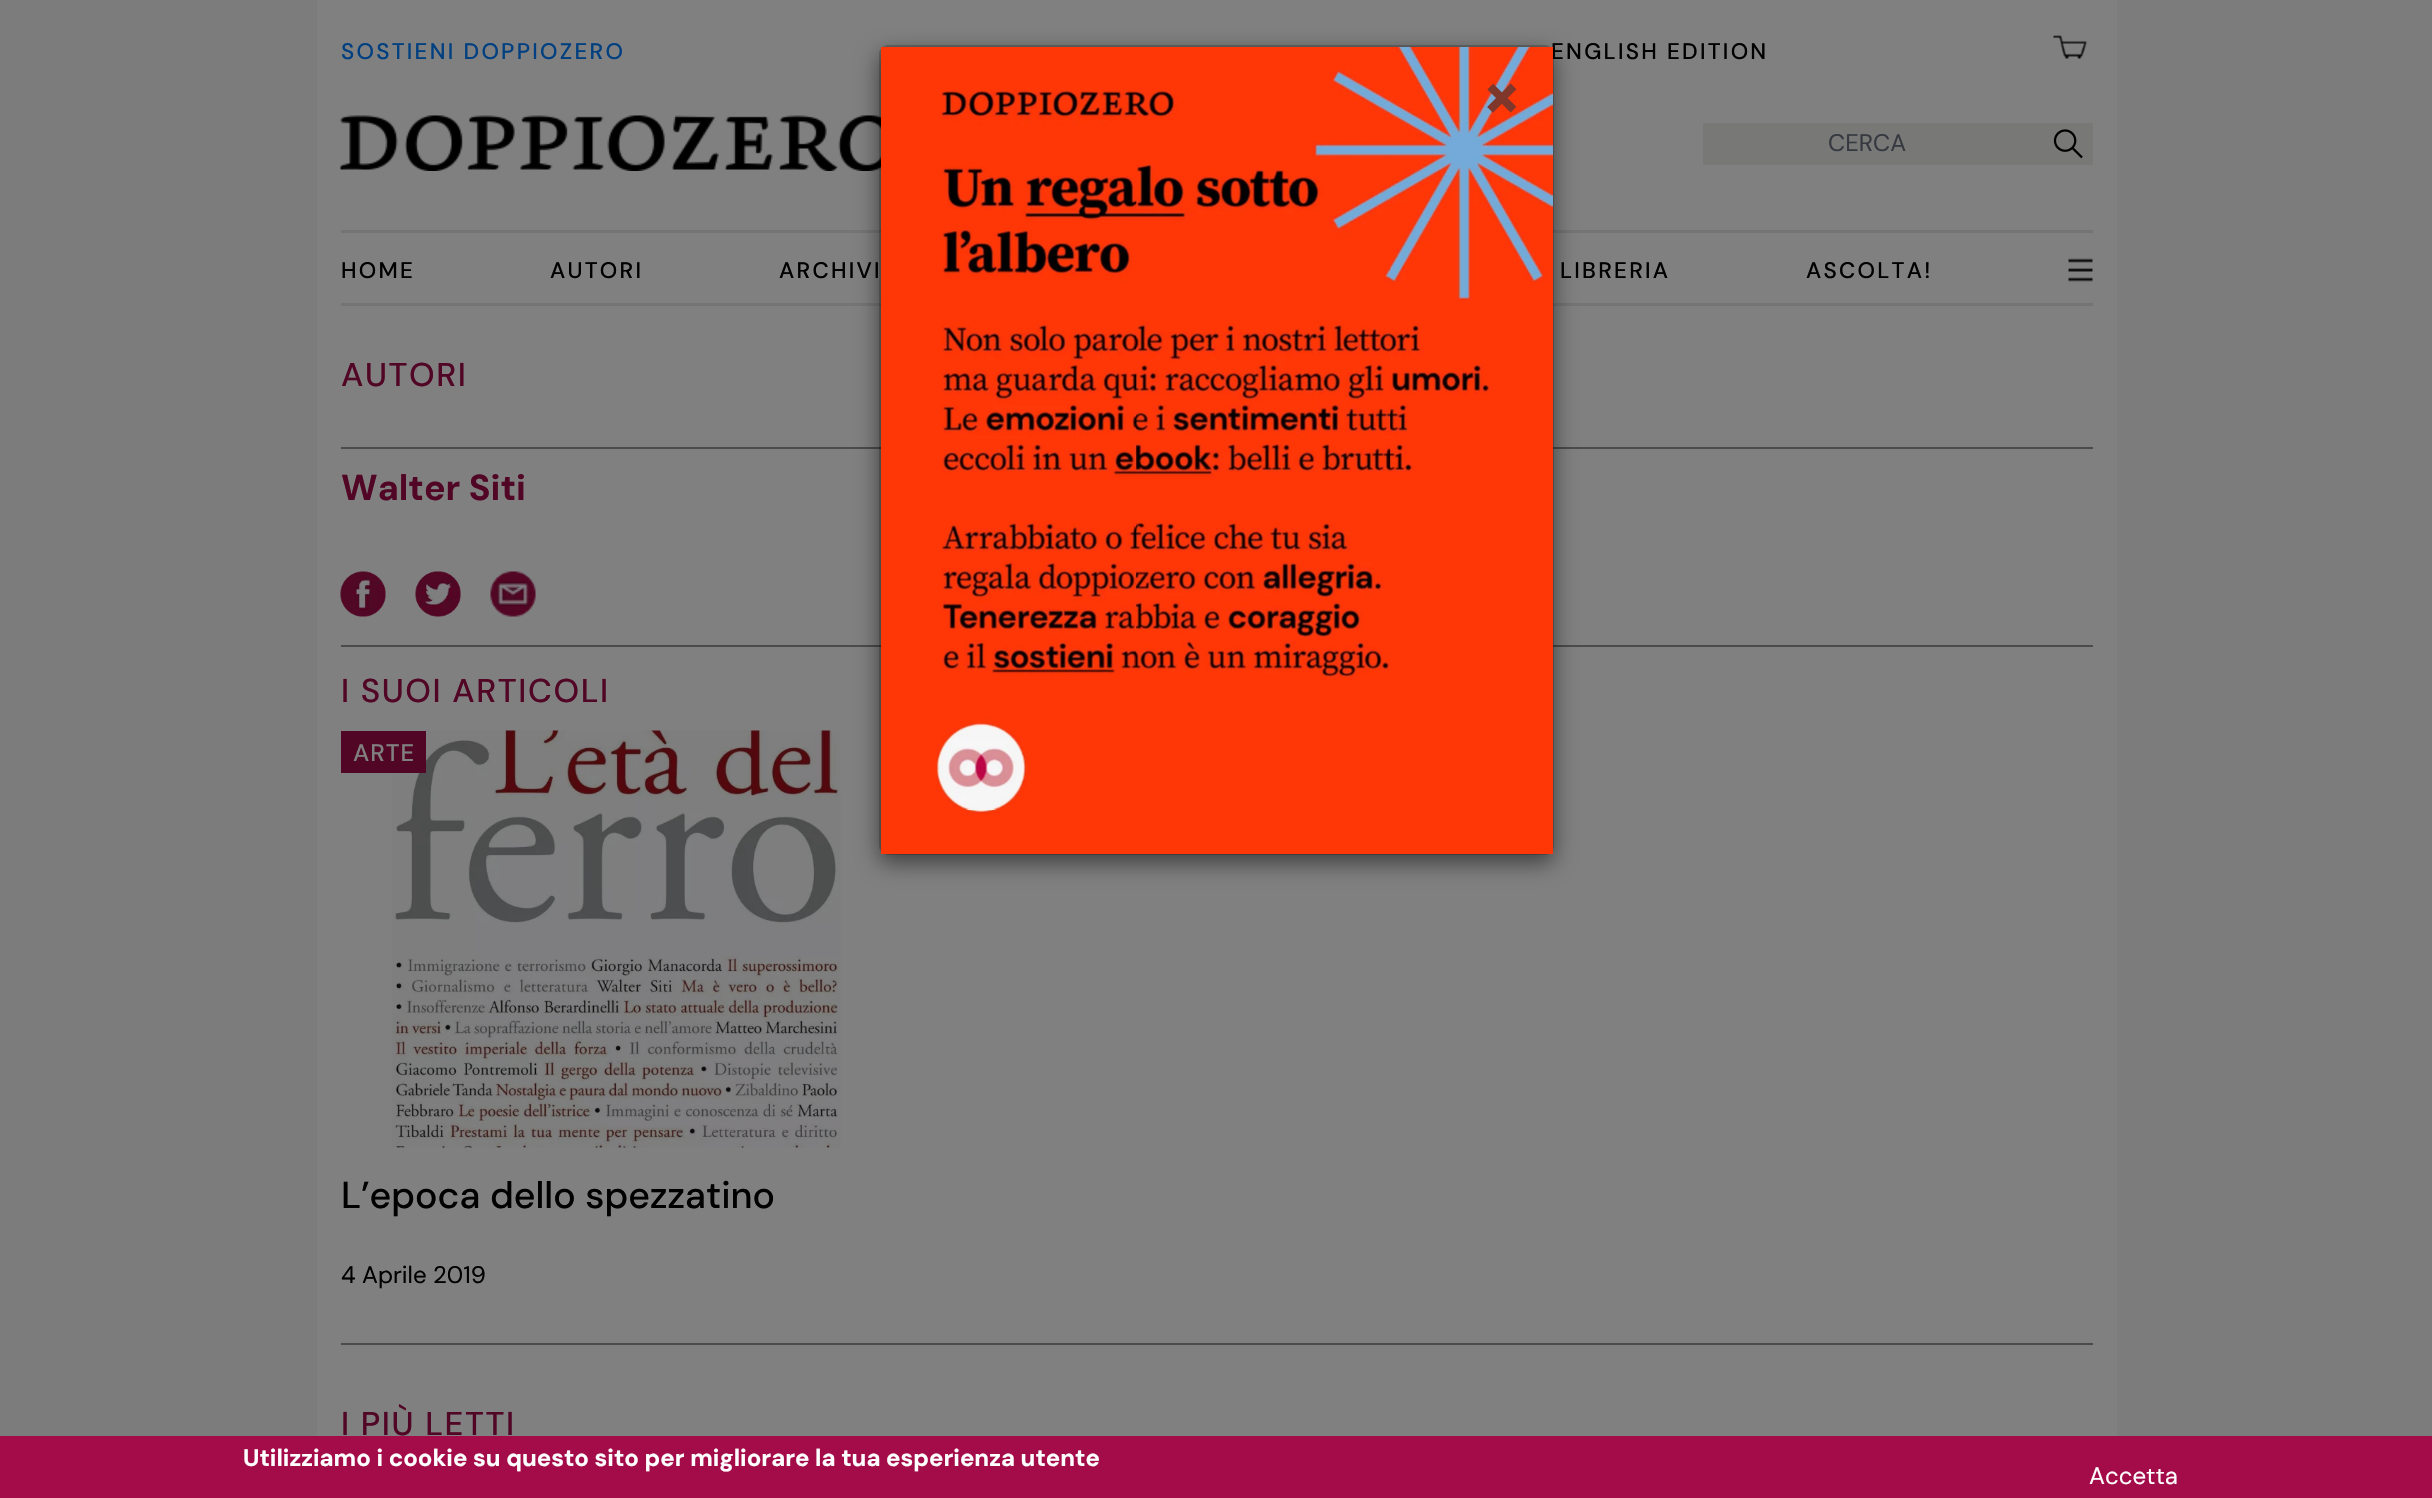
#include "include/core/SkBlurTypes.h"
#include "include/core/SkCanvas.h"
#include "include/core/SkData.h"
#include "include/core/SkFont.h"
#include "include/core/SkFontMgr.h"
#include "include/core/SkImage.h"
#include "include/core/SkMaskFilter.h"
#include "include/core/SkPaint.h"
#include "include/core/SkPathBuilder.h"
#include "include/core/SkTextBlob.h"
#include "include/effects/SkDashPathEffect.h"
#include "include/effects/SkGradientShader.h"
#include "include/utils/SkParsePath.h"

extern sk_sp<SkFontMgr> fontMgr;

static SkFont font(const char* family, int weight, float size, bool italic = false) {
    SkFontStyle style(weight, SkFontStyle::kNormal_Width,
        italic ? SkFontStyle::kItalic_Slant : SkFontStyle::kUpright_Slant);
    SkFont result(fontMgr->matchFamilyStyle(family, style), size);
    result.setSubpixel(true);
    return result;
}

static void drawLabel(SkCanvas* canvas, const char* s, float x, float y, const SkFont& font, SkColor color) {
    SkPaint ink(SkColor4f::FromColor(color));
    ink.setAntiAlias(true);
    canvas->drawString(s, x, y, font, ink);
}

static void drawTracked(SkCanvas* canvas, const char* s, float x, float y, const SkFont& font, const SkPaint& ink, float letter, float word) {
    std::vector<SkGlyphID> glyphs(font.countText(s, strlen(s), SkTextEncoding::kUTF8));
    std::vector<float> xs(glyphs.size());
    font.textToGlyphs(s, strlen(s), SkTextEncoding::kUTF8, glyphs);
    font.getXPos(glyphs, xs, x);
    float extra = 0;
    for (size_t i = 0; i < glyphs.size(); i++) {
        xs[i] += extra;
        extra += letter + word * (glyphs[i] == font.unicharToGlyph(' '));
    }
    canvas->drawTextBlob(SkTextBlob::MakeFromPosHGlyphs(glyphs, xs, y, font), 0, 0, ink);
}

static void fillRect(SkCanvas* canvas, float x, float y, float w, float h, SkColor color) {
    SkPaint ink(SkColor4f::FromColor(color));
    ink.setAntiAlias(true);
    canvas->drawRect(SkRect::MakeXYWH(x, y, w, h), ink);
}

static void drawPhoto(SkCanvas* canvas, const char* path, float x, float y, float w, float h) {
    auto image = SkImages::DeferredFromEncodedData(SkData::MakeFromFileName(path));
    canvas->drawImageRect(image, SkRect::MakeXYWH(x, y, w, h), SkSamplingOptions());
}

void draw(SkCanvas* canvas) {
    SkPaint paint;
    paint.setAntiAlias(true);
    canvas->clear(0xFF7C7C7C);
    fillRect(canvas, 317, 0, 1800, 1436, 0xFF808080);
    SkFont font1 = font("DM Sans", 500, 22.5f);
    paint.setColor(0xFF004080);
    drawTracked(canvas, "SOSTIENI DOPPIOZERO", 341, 59, font1, paint, 2.25f, 0);
    paint.setColor(0xFF000000);
    drawTracked(canvas, "ENGLISH EDITION", 1551, 59, font1, paint, 2.25f, 0);
    drawPhoto(canvas, "assets/img1.png", 2053, 35, 34, 24);
    drawPhoto(canvas, "assets/img2.png", 340, 115, 541, 56);
    fillRect(canvas, 1703, 123, 390, 42, 0xFF787877);
    SkFont font2 = font("DM Sans", 400, 24);
    drawLabel(canvas, "CERCA", 1828, 151, font2, 0xFF363940);
    drawPhoto(canvas, "assets/img3.png", 2053, 129, 30, 30);
    fillRect(canvas, 341, 230, 1752, 3, 0xFF737476);
    fillRect(canvas, 341, 303, 1752, 3, 0xFF737476);
    drawTracked(canvas, "HOME", 341, 278, font1, paint, 2.25f, 0);
    drawTracked(canvas, "AUTORI", 550, 278, font1, paint, 2.25f, 0);
    drawTracked(canvas, "ARCHIVI", 779, 278, font1, paint, 2.25f, 0);
    drawTracked(canvas, "LIBRERIA", 1560, 278, font1, paint, 2.25f, 0);
    drawTracked(canvas, "ASCOLTA!", 1806, 278, font1, paint, 2.25f, 0);
    drawPhoto(canvas, "assets/img4.png", 2068, 258, 25, 24);
    fillRect(canvas, 341, 447, 1752, 2, 0xFF4B4B4A);
    SkFont font3 = font("DM Sans", 500, 33);
    paint.setColor(0xFF520625);
    drawTracked(canvas, "AUTORI", 341, 386, font3, paint, 1.6f, 0);
    SkFont font4 = font("DM Sans", 700, 36);
    drawLabel(canvas, "Walter Siti", 341, 500, font4, 0xFF520625);
    fillRect(canvas, 341, 645, 1752, 2, 0xFF4B4B4A);
    drawPhoto(canvas, "assets/img5.png", 340, 571, 46, 46);
    drawPhoto(canvas, "assets/img6.png", 415, 571, 46, 46);
    drawPhoto(canvas, "assets/img7.png", 490, 571, 46, 46);
    drawTracked(canvas, "I SUOI ARTICOLI", 341, 702, font3, paint, 1.6f, 0);
    drawPhoto(canvas, "assets/img8.png", 392, 730, 449, 418);
    fillRect(canvas, 341, 731, 85, 42, 0xFF520625);
    SkFont font5 = font("DM Sans", 500, 24);
    paint.setColor(0xFF808080);
    drawTracked(canvas, "ARTE", 353, 761, font5, paint, 1, 0);
    SkFont font6 = font("DM Sans", 500, 37.5f);
    drawLabel(canvas, "L’epoca dello spezzatino", 341, 1208, font6, 0xFF000000);
    drawLabel(canvas, "4 Aprile 2019", 341, 1283, font2, 0xFF000000);
    fillRect(canvas, 341, 1343, 1752, 2, 0xFF4B4B4A);
    paint.setColor(0xFF520625);
    drawTracked(canvas, "I PIÙ LETTI", 341, 1435, font3, paint, 1.6f, 0);
    paint.setColor(0x80000000);
    paint.setMaskFilter(SkMaskFilter::MakeBlur(kNormal_SkBlurStyle, 11));
    canvas->drawRoundRect(SkRect::MakeXYWH(879, 53, 675, 810), 9, 9, paint);
    paint.setMaskFilter(nullptr);
    paint.setStroke(true);
    paint.setStrokeWidth(2);
    paint.setColor(0x33000000);
    canvas->drawRoundRect(SkRect::MakeXYWH(880, 46, 673, 808), 8, 8, paint);
    drawPhoto(canvas, "assets/img9.png", 881, 47, 672, 807);
    SkFont font7 = font("DM Sans", 700, 72);
    drawLabel(canvas, "×", 1481, 119, font7, 0xFF7F362B);
    fillRect(canvas, 0, 1436, 2432, 62, 0xFFA30C49);
    SkFont font8 = font("DM Sans", 700, 24);
    drawLabel(canvas, "Utilizziamo i cookie su questo sito per migliorare la tua esperienza utente", 243, 1466, font8, 0xFFFFFFFF);
    drawLabel(canvas, "Accetta", 2089, 1484, font2, 0xFFFFFFFF);
}
